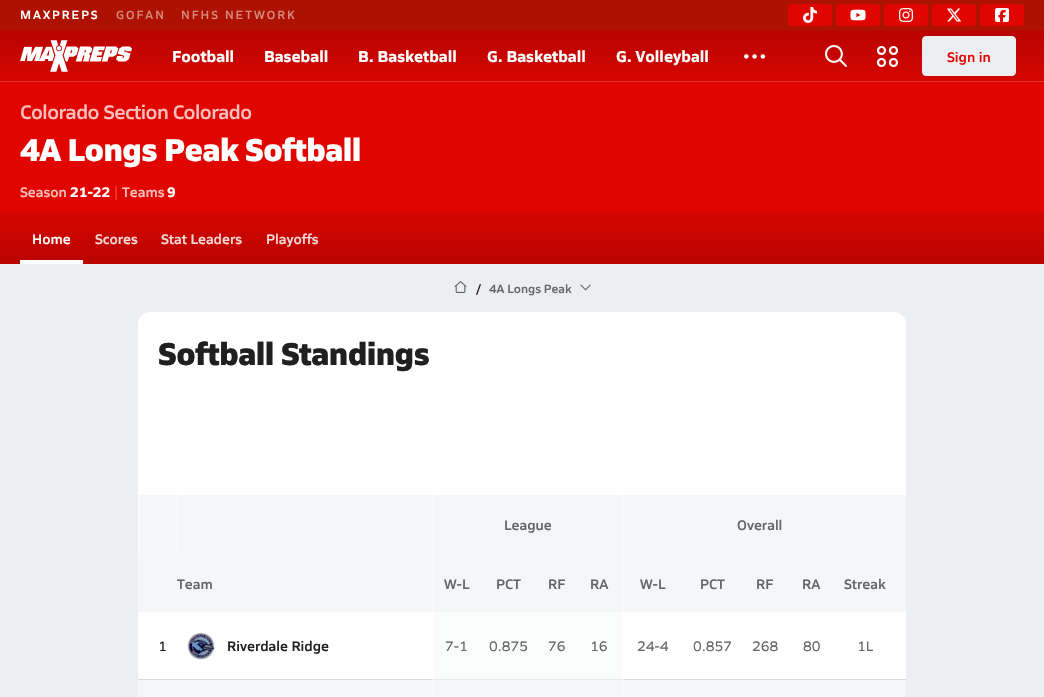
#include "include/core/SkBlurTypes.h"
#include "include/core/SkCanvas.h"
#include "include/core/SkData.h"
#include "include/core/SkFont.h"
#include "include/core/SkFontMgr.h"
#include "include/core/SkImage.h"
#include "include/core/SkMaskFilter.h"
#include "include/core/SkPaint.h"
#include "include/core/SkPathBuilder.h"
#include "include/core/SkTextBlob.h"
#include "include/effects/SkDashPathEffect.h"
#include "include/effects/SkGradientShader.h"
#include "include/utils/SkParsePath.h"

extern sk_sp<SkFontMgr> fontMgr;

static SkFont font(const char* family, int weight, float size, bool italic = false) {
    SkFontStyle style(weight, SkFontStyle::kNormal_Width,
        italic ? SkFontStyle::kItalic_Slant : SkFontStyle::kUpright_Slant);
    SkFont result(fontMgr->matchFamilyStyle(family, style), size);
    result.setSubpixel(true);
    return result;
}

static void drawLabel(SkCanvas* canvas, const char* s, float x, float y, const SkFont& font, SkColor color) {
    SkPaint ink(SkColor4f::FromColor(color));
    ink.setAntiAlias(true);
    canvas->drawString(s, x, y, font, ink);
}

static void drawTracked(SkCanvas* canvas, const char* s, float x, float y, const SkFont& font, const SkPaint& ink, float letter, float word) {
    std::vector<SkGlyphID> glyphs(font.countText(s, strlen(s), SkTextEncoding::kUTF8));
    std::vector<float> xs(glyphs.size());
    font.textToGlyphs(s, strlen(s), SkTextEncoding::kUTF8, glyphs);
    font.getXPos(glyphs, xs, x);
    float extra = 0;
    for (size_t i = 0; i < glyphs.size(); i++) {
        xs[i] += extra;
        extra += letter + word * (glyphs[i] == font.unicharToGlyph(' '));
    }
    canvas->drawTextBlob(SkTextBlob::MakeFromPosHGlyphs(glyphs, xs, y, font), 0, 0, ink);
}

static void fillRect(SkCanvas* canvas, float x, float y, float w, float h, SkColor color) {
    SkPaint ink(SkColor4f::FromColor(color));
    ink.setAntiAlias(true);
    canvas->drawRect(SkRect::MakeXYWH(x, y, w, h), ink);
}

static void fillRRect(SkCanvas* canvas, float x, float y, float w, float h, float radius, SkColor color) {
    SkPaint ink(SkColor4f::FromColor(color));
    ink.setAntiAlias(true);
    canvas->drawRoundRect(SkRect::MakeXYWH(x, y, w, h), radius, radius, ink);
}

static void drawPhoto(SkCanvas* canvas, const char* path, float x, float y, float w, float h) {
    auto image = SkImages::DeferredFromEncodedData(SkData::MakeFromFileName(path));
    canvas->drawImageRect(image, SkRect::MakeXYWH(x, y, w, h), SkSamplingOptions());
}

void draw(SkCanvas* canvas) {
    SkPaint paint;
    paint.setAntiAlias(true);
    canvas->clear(0xFFEDEEF2);
    fillRect(canvas, 0, 0, 1044, 30, 0xFFAD1100);
    SkFont font1 = font("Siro", 600, 12);
    paint.setColor(0xFFFFFFFF);
    drawTracked(canvas, "MAXPREPS", 20, 19, font1, paint, 2, 0);
    paint.setColor(0xFFD6887F);
    drawTracked(canvas, "GOFAN", 116, 19, font1, paint, 2, 0);
    drawTracked(canvas, "NFHS NETWORK", 181, 19, font1, paint, 2, 0);
    fillRRect(canvas, 788, 4, 44, 22, 4, 0xFFE10500);
    drawPhoto(canvas, "assets/img1.png", 803, 7, 14, 16);
    fillRRect(canvas, 836, 4, 44, 22, 4, 0xFFE10500);
    drawPhoto(canvas, "assets/img2.png", 850, 9, 16, 12);
    fillRRect(canvas, 884, 4, 44, 22, 4, 0xFFE10500);
    drawPhoto(canvas, "assets/img3.png", 899, 8, 14, 14);
    fillRRect(canvas, 932, 4, 44, 22, 4, 0xFFE10500);
    drawPhoto(canvas, "assets/img4.png", 947, 8, 15, 14);
    fillRRect(canvas, 980, 4, 44, 22, 4, 0xFFE10500);
    drawPhoto(canvas, "assets/img5.png", 995, 8, 14, 14);
    {
        const SkColor colors[] = {0xFFB80400, 0xFFD50500};
        const float stops[] = {0, 1};
        const SkPoint ends[] = {{522, 30}, {522, 82}};
        paint.setShader(SkGradientShader::MakeLinear(ends, colors, stops, 2, SkTileMode::kClamp));
        paint.setAlpha(255);
    }
    canvas->drawRect(SkRect::MakeXYWH(0, 30, 1044, 51), paint);
    drawPhoto(canvas, "assets/img6.png", 20, 40, 112, 32);
    SkFont font2 = font("Siro", 700, 16);
    drawLabel(canvas, "Football", 172, 62, font2, 0xFFFFFFFF);
    drawLabel(canvas, "Baseball", 264, 62, font2, 0xFFFFFFFF);
    drawLabel(canvas, "B. Basketball", 358, 62, font2, 0xFFFFFFFF);
    drawLabel(canvas, "G. Basketball", 487, 62, font2, 0xFFFFFFFF);
    drawLabel(canvas, "G. Volleyball", 616, 62, font2, 0xFFFFFFFF);
    drawPhoto(canvas, "assets/img7.png", 744, 54, 22, 5);
    drawPhoto(canvas, "assets/img8.png", 825, 45, 22, 22);
    paint.setStroke(true);
    paint.setStrokeWidth(2.2f);
    paint.setShader(nullptr);
    paint.setColor(0xFFFFFFFF);
    canvas->drawCircle(881.5f, 50.5f, 3.5f, paint);
    canvas->drawCircle(893.5f, 50.5f, 3.5f, paint);
    canvas->drawCircle(881.5f, 62.5f, 3.5f, paint);
    canvas->drawCircle(893.5f, 62.5f, 3.5f, paint);
    paint.setStroke(false);
    paint.setColor(0xFFEDEEF2);
    canvas->drawRoundRect(SkRect::MakeXYWH(922.5f, 36.5f, 93, 39), 3.5f, 3.5f, paint);
    paint.setStroke(true);
    paint.setStrokeWidth(1);
    canvas->drawRoundRect(SkRect::MakeXYWH(922.5f, 36.5f, 93, 39), 3.5f, 3.5f, paint);
    SkFont font3 = font("Siro", 600, 14);
    drawLabel(canvas, "Sign in", 947, 62, font3, 0xFFE10500);
    fillRect(canvas, 0, 81, 1044, 1, 0xFFDD3733);
    fillRect(canvas, 0, 82, 1044, 130, 0xFFE10500);
    SkFont font4 = font("Siro", 600, 20);
    paint.setStroke(false);
    paint.setColor(0xFFF8C1BF);
    drawTracked(canvas, "Colorado Section Colorado", 20, 119, font4, paint, -0.5f, 0);
    SkFont font5 = font("Siro", 800, 32);
    paint.setColor(0xFFFFFFFF);
    drawTracked(canvas, "4A Longs Peak Softball", 20, 161, font5, paint, -0.5f, 0);
    drawLabel(canvas, "Season", 20, 197, font3, 0xFFF8C1BF);
    SkFont font6 = font("Siro", 700, 14);
    drawLabel(canvas, "21-22", 70, 197, font6, 0xFFFFFFFF);
    drawLabel(canvas, "|", 114, 197, font6, 0xFFE73733);
    drawLabel(canvas, "Teams", 122, 197, font3, 0xFFF8C1BF);
    drawLabel(canvas, "9", 167, 197, font6, 0xFFFFFFFF);
    {
        const SkColor colors[] = {0xFFD50500, 0xFFB80400};
        const float stops[] = {0, 1};
        const SkPoint ends[] = {{522, 212}, {522, 264}};
        paint.setShader(SkGradientShader::MakeLinear(ends, colors, stops, 2, SkTileMode::kClamp));
        paint.setAlpha(255);
    }
    canvas->drawRect(SkRect::MakeXYWH(0, 212, 1044, 52), paint);
    drawLabel(canvas, "Home", 32, 244, font3, 0xFFFFFFFF);
    fillRect(canvas, 20, 260, 63, 4, 0xFFFFFFFF);
    drawLabel(canvas, "Scores", 95, 244, font3, 0xFFF6D9D9);
    drawLabel(canvas, "Stat Leaders", 161, 244, font3, 0xFFF6D9D9);
    drawLabel(canvas, "Playoffs", 266, 244, font3, 0xFFF6D9D9);
    drawPhoto(canvas, "assets/img9.png", 454, 281, 13, 12);
    drawLabel(canvas, "/", 476, 293, font1, 0xFF212021);
    drawLabel(canvas, "4A Longs Peak", 489, 293, font1, 0xFF656667);
    drawPhoto(canvas, "assets/img10.png", 580, 284, 11, 7);
    fillRRect(canvas, 138, 312, 768, 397, 12, 0xFFFFFFFF);
    fillRect(canvas, 434, 612, 188, 67, 0xFFFAFBFB);
    paint.setShader(nullptr);
    paint.setColor(0xFF212021);
    drawTracked(canvas, "Softball Standings", 158, 365, font5, paint, -0.5f, 0);
    fillRect(canvas, 139, 495, 38, 59, 0xFFF5F6F7);
    fillRect(canvas, 178, 495, 255, 59, 0xFFF5F6F7);
    fillRect(canvas, 434, 495, 188, 59, 0xFFF5F6F7);
    drawLabel(canvas, "League", 504, 530, font3, 0xFF656667);
    fillRect(canvas, 623, 495, 283, 59, 0xFFF5F6F7);
    drawLabel(canvas, "Overall", 737, 530, font3, 0xFF656667);
    fillRect(canvas, 138, 554, 295, 58, 0xFFF5F6F7);
    fillRect(canvas, 623, 554, 283, 58, 0xFFF5F6F7);
    drawLabel(canvas, "Streak", 844, 589, font3, 0xFF656667);
    drawLabel(canvas, "Team", 177, 589, font3, 0xFF656667);
    fillRect(canvas, 434, 554, 188, 58, 0xFFF5F6F7);
    drawLabel(canvas, "W-L", 444, 589, font3, 0xFF656667);
    drawLabel(canvas, "PCT", 496, 589, font3, 0xFF656667);
    drawLabel(canvas, "RF", 548, 589, font3, 0xFF656667);
    drawLabel(canvas, "RA", 590, 589, font3, 0xFF656667);
    drawLabel(canvas, "W-L", 640, 589, font3, 0xFF656667);
    drawLabel(canvas, "PCT", 700, 589, font3, 0xFF656667);
    drawLabel(canvas, "RF", 756, 589, font3, 0xFF656667);
    drawLabel(canvas, "RA", 802, 589, font3, 0xFF656667);
    fillRect(canvas, 138, 679, 768, 1, 0xFFD9DBDE);
    fillRect(canvas, 433, 679, 189, 1, 0xFFE7E9EB);
    SkFont font7 = font("Siro", 400, 14);
    drawLabel(canvas, "1", 158, 651, font7, 0xFF212021);
    drawPhoto(canvas, "assets/img11.png", 187, 632, 28, 28);
    drawLabel(canvas, "Riverdale Ridge", 227, 651, font3, 0xFF212021);
    fillRect(canvas, 433, 679, 1, 1, 0xFFFFFFFF);
    drawLabel(canvas, "7-1", 445, 651, font7, 0xFF656667);
    drawLabel(canvas, "0.875", 489, 651, font7, 0xFF656667);
    drawLabel(canvas, "76", 548, 651, font7, 0xFF656667);
    drawLabel(canvas, "16", 590, 651, font7, 0xFF656667);
    fillRect(canvas, 622, 679, 1, 1, 0xFFFFFFFF);
    drawLabel(canvas, "24-4", 637, 651, font7, 0xFF656667);
    drawLabel(canvas, "0.857", 693, 651, font7, 0xFF656667);
    drawLabel(canvas, "268", 752, 651, font7, 0xFF656667);
    drawLabel(canvas, "80", 803, 651, font7, 0xFF656667);
    drawLabel(canvas, "1L", 857, 651, font7, 0xFF656667);
    fillRect(canvas, 138, 680, 768, 17, 0xFFF5F6F7);
    fillRect(canvas, 433, 680, 1, 17, 0xFFFFFFFF);
    fillRect(canvas, 622, 680, 1, 17, 0xFFFFFFFF);
}
